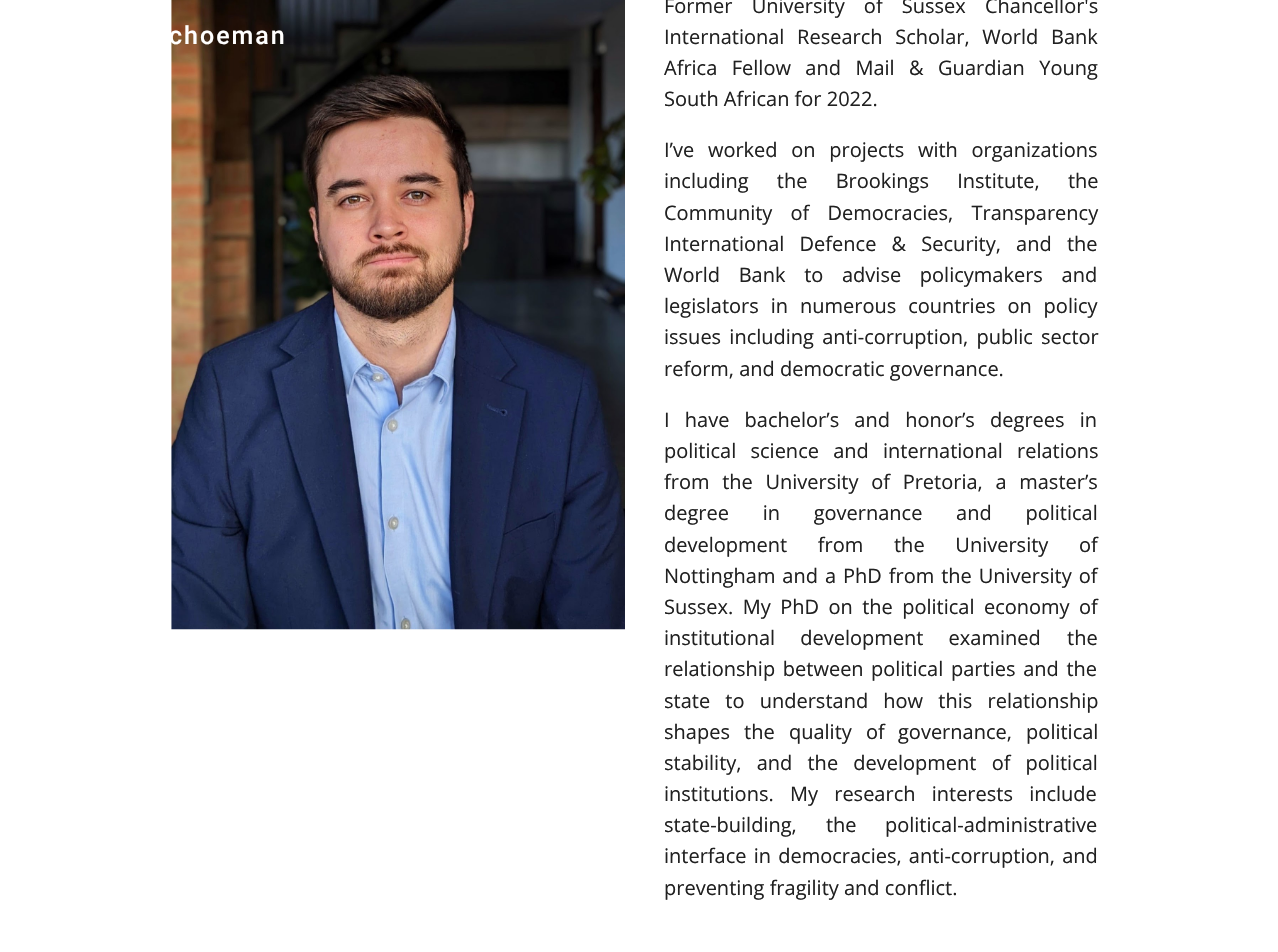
#include "include/core/SkBlurTypes.h"
#include "include/core/SkCanvas.h"
#include "include/core/SkData.h"
#include "include/core/SkFont.h"
#include "include/core/SkFontMgr.h"
#include "include/core/SkImage.h"
#include "include/core/SkMaskFilter.h"
#include "include/core/SkPaint.h"
#include "include/core/SkPathBuilder.h"
#include "include/core/SkTextBlob.h"
#include "include/effects/SkDashPathEffect.h"
#include "include/effects/SkGradientShader.h"
#include "include/utils/SkParsePath.h"

extern sk_sp<SkFontMgr> fontMgr;

static SkFont font(const char* family, int weight, float size, bool italic = false) {
    SkFontStyle style(weight, SkFontStyle::kNormal_Width,
        italic ? SkFontStyle::kItalic_Slant : SkFontStyle::kUpright_Slant);
    SkFont result(fontMgr->matchFamilyStyle(family, style), size);
    result.setSubpixel(true);
    return result;
}

static void drawLabel(SkCanvas* canvas, const char* s, float x, float y, const SkFont& font, SkColor color) {
    SkPaint ink(SkColor4f::FromColor(color));
    ink.setAntiAlias(true);
    canvas->drawString(s, x, y, font, ink);
}

static void drawTracked(SkCanvas* canvas, const char* s, float x, float y, const SkFont& font, const SkPaint& ink, float letter, float word) {
    std::vector<SkGlyphID> glyphs(font.countText(s, strlen(s), SkTextEncoding::kUTF8));
    std::vector<float> xs(glyphs.size());
    font.textToGlyphs(s, strlen(s), SkTextEncoding::kUTF8, glyphs);
    font.getXPos(glyphs, xs, x);
    float extra = 0;
    for (size_t i = 0; i < glyphs.size(); i++) {
        xs[i] += extra;
        extra += letter + word * (glyphs[i] == font.unicharToGlyph(' '));
    }
    canvas->drawTextBlob(SkTextBlob::MakeFromPosHGlyphs(glyphs, xs, y, font), 0, 0, ink);
}

static void drawPhoto(SkCanvas* canvas, const char* path, float x, float y, float w, float h) {
    auto image = SkImages::DeferredFromEncodedData(SkData::MakeFromFileName(path));
    canvas->drawImageRect(image, SkRect::MakeXYWH(x, y, w, h), SkSamplingOptions());
}

void draw(SkCanvas* canvas) {
    SkPaint paint;
    paint.setAntiAlias(true);
    canvas->clear(0xFFFFFFFF);
    drawPhoto(canvas, "assets/img1.png", 171, 0, 454, 630);
    SkFont font1 = font("Roboto", 500, 25);
    paint.setColor(0xFFFFFFFF);
    drawTracked(canvas, "choeman", 169, 44, font1, paint, 2, 0);
    SkFont font2 = font("Open Sans", 400, 20);
    paint.setColor(0xFF212121);
    drawTracked(canvas, "Former University of Sussex Chancellor's", 664, 13, font2, paint, 0, 14);
    drawTracked(canvas, "International Research Scholar, World Bank", 664, 44, font2, paint, 0, 7.5f);
    drawTracked(canvas, "Africa Fellow and Mail & Guardian Young", 664, 75, font2, paint, 0, 9.25f);
    drawLabel(canvas, "South African for 2022.", 664, 106, font2, 0xFF212121);
    drawTracked(canvas, "I’ve worked on projects with organizations", 664, 157, font2, paint, 0, 8.5f);
    drawTracked(canvas, "including the Brookings Institute, the", 664, 188, font2, paint, 0, 23);
    drawTracked(canvas, "Community of Democracies, Transparency", 664, 220, font2, paint, 0, 13);
    drawTracked(canvas, "International Defence & Security, and the", 664, 251, font2, paint, 0, 10);
    drawTracked(canvas, "World Bank to advise policymakers and", 664, 282, font2, paint, 0, 13.5f);
    drawTracked(canvas, "legislators in numerous countries on policy", 664, 313, font2, paint, 0, 6.75f);
    drawTracked(canvas, "issues including anti-corruption, public sector", 664, 344, font2, paint, 0, 3);
    drawLabel(canvas, "reform, and democratic governance.", 664, 376, font2, 0xFF212121);
    drawTracked(canvas, "I have bachelor’s and honor’s degrees in", 664, 427, font2, paint, 0, 10);
    drawTracked(canvas, "political science and international relations", 664, 458, font2, paint, 0, 9);
    drawTracked(canvas, "from the University of Pretoria, a master’s", 664, 489, font2, paint, 0, 7.5f);
    drawTracked(canvas, "degree in governance and political", 664, 520, font2, paint, 0, 28.5f);
    drawTracked(canvas, "development from the University of", 664, 552, font2, paint, 0, 25.5f);
    drawTracked(canvas, "Nottingham and a PhD from the University of", 664, 583, font2, paint, 0, 1.75f);
    drawTracked(canvas, "Sussex. My PhD on the political economy of", 664, 614, font2, paint, 0, 4.25f);
    drawTracked(canvas, "institutional development examined", 664, 645, font2, paint, 0, 20);
    drawLabel(canvas, "the", 1067, 645, font2, 0xFF212121);
    drawTracked(canvas, "relationship between", 664, 676, font2, paint, 0, 2.5f);
    drawTracked(canvas, "political parties and the", 871, 676, font2, paint, 0, 2.5f);
    drawTracked(canvas, "state to understand how this relationship", 664, 708, font2, paint, 0, 10);
    drawTracked(canvas, "shapes the quality of", 664, 739, font2, paint, 0, 9);
    drawTracked(canvas, "governance, political", 898, 739, font2, paint, 0, 9);
    drawTracked(canvas, "stability, and the development of political", 664, 770, font2, paint, 0, 10);
    drawLabel(canvas, "institutions.", 664, 801, font2, 0xFF212121);
    drawTracked(canvas, "My research interests include", 790, 801, font2, paint, 0, 11);
    drawTracked(canvas, "state-building, the", 664, 832, font2, paint, 0, 24);
    drawLabel(canvas, "political-administrative", 885, 832, font2, 0xFF212121);
    drawTracked(canvas, "interface in democracies, anti-corruption, and", 664, 863, font2, paint, 0, 2);
    drawLabel(canvas, "preventing fragility and conflict.", 664, 895, font2, 0xFF212121);
}
